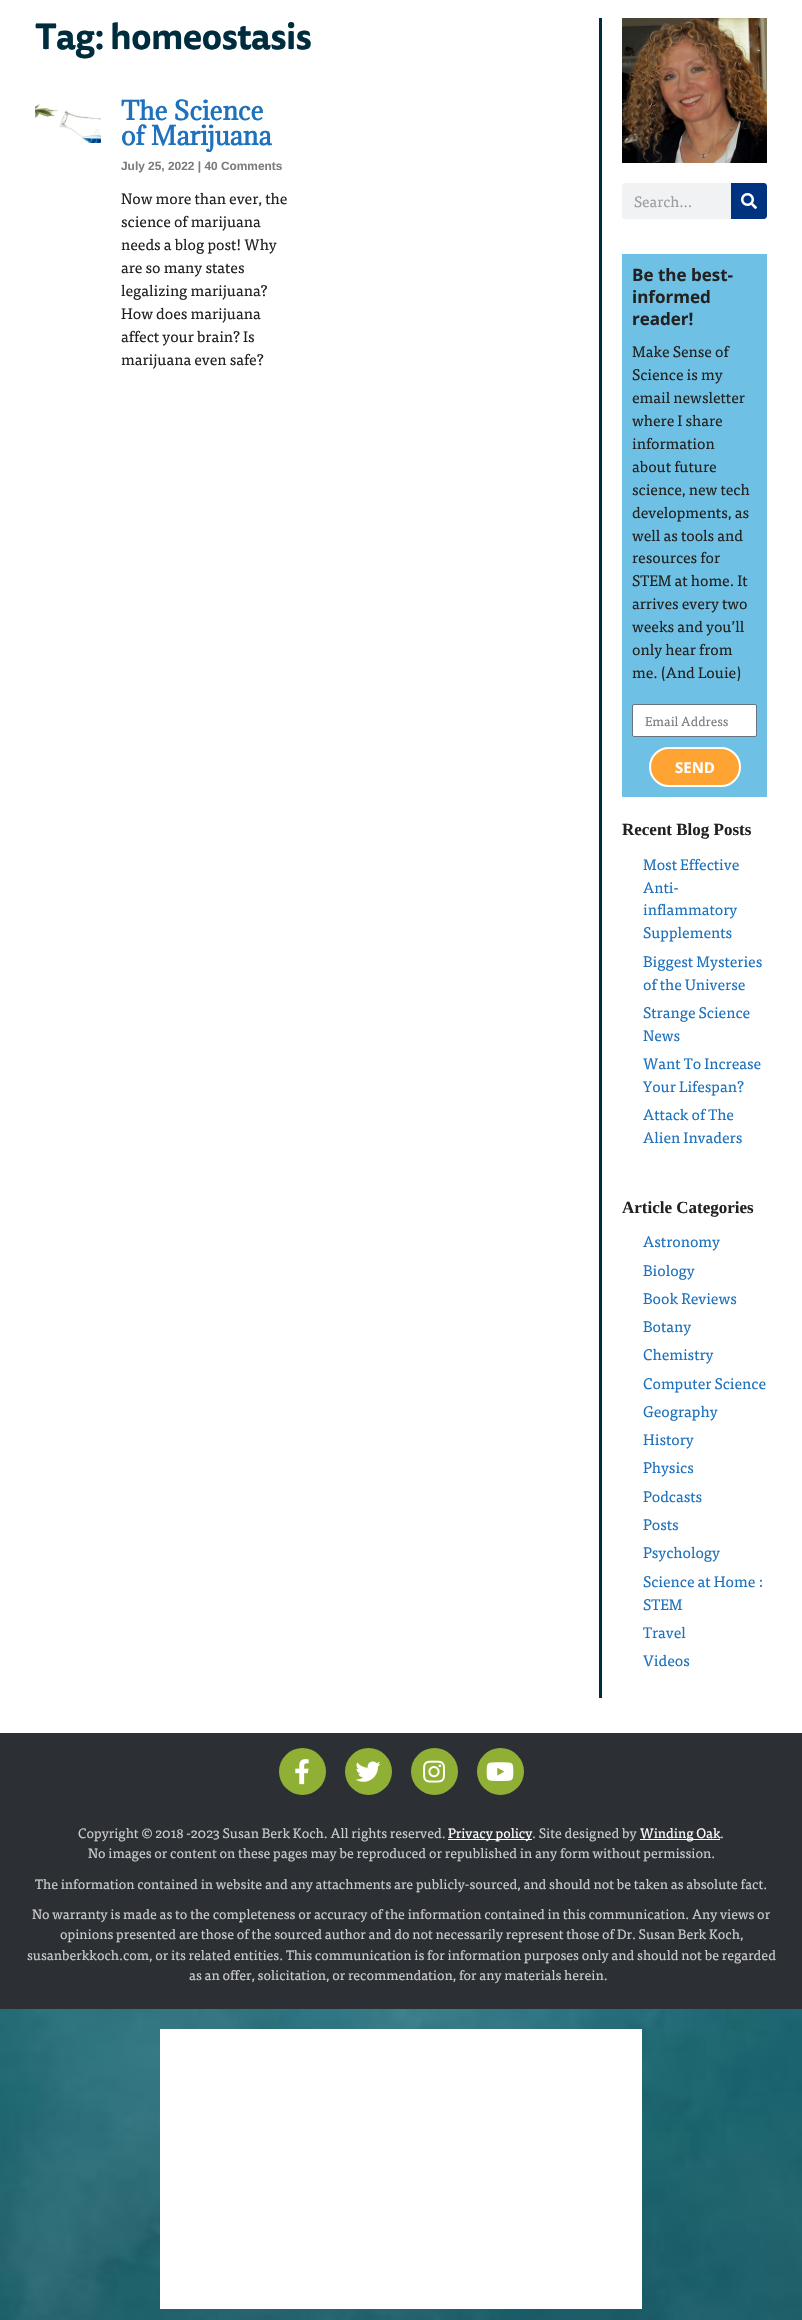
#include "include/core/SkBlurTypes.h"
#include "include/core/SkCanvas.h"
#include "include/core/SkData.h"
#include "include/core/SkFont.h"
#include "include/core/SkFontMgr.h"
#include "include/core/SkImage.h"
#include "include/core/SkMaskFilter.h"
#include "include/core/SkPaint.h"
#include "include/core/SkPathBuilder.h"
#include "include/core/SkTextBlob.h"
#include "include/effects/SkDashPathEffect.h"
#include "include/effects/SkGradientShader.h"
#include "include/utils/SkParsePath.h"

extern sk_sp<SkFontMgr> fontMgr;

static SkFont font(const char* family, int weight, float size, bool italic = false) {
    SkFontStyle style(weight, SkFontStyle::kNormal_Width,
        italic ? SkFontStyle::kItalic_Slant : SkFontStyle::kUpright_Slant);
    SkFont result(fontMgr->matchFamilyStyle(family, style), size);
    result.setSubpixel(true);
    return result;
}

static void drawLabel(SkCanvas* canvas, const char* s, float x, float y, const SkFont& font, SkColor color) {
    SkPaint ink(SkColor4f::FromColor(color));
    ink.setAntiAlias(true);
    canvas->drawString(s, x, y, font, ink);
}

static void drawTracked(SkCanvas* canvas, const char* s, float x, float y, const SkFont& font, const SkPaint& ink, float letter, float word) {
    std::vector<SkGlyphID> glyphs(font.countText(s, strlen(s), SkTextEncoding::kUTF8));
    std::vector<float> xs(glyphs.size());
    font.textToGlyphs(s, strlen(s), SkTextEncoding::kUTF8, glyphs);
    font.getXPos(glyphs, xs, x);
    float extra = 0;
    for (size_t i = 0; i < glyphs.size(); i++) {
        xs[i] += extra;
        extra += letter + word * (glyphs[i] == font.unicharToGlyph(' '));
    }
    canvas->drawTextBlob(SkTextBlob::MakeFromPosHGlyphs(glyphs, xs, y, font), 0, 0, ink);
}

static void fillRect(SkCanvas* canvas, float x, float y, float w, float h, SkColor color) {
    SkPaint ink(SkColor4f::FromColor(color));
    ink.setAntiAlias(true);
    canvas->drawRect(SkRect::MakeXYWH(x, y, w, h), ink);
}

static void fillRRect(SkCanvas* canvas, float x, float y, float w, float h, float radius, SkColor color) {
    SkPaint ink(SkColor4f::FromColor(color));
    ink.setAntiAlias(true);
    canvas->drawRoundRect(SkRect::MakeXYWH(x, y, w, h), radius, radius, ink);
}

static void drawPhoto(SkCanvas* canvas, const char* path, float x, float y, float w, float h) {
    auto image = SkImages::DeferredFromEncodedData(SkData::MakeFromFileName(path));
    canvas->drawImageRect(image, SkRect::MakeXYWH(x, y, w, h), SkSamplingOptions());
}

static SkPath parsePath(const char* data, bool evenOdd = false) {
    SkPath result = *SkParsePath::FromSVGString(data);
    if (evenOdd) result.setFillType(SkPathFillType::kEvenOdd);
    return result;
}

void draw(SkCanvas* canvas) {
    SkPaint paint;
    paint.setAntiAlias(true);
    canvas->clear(0xFFFFFFFF);
    drawPhoto(canvas, "assets/img1.png", 0, 2009, 802, 311);
    fillRect(canvas, 599, 18, 3, 1680, 0xFF002D3E);
    SkFont font1 = font("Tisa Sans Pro", 700, 35.75f);
    paint.setColor(0xFF002D3E);
    drawTracked(canvas, "Tag: homeostasis", 35, 49, font1, paint, -0.75f, 0);
    drawPhoto(canvas, "assets/img2.png", 35, 103, 66, 40);
    SkFont font2 = font("Adamina", 700, 24.5f);
    drawLabel(canvas, "The Science", 121, 120, font2, 0xFF1E72BD);
    drawLabel(canvas, "of Marijuana", 121, 145, font2, 0xFF1E72BD);
    SkFont font3 = font("Liberation Sans", 700, 11.9f);
    drawLabel(canvas, "July 25, 2022 | 40 Comments", 121, 170, font3, 0xFF7C7C7C);
    SkFont font4 = font("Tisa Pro", 400, 15.25f);
    drawLabel(canvas, "Now more than ever, the", 121, 204, font4, 0xFF222222);
    drawLabel(canvas, "science of marijuana", 121, 227, font4, 0xFF222222);
    drawLabel(canvas, "needs a blog post! Why", 121, 250, font4, 0xFF222222);
    drawLabel(canvas, "are so many states", 121, 273, font4, 0xFF222222);
    drawLabel(canvas, "legalizing marijuana?", 121, 296, font4, 0xFF222222);
    drawLabel(canvas, "How does marijuana", 121, 319, font4, 0xFF222222);
    drawLabel(canvas, "affect your brain? Is", 121, 342, font4, 0xFF222222);
    drawLabel(canvas, "marijuana even safe?", 121, 365, font4, 0xFF222222);
    drawPhoto(canvas, "assets/img3.png", 622, 18, 145, 145);
    fillRRect(canvas, 622, 183, 145, 36, 3, 0xFFF1F2F3);
    SkFont font5 = font("Tisa Pro", 400, 15);
    drawLabel(canvas, "Search...", 634, 207, font5, 0xFF9E9E9E);
    paint.setColor(0xFF00337F);
    canvas->drawPath(parsePath("M731 183H764C765.5 183 767 184.5 767 186V216C767 217.5 765.5 219 764 219H731Z"), paint);
    drawPhoto(canvas, "assets/img4.png", 741, 193, 16, 16);
    fillRect(canvas, 622, 254, 145, 543, 0xFF6EC1E4);
    SkFont font6 = font("Open Sans", 700, 17);
    drawLabel(canvas, "Be the best-", 632, 281, font6, 0xFF222222);
    drawLabel(canvas, "informed", 632, 303, font6, 0xFF222222);
    drawLabel(canvas, "reader!", 632, 325, font6, 0xFF222222);
    drawLabel(canvas, "Make Sense of", 632, 357, font4, 0xFF222222);
    drawLabel(canvas, "Science is my", 632, 380, font4, 0xFF222222);
    drawLabel(canvas, "email newsletter", 632, 403, font4, 0xFF222222);
    drawLabel(canvas, "where I share", 632, 426, font4, 0xFF222222);
    drawLabel(canvas, "information", 632, 449, font4, 0xFF222222);
    drawLabel(canvas, "about future", 632, 472, font4, 0xFF222222);
    drawLabel(canvas, "science, new tech", 632, 495, font4, 0xFF222222);
    drawLabel(canvas, "developments, as", 632, 518, font4, 0xFF222222);
    drawLabel(canvas, "well as tools and", 632, 541, font4, 0xFF222222);
    drawLabel(canvas, "resources for", 632, 563, font4, 0xFF222222);
    drawLabel(canvas, "STEM at home. It", 632, 586, font4, 0xFF222222);
    drawLabel(canvas, "arrives every two", 632, 609, font4, 0xFF222222);
    drawLabel(canvas, "weeks and you’ll", 632, 632, font4, 0xFF222222);
    drawLabel(canvas, "only hear from", 632, 655, font4, 0xFF222222);
    drawLabel(canvas, "me. (And Louie)", 632, 678, font4, 0xFF222222);
    paint.setColor(0xFFFFFFFF);
    canvas->drawRoundRect(SkRect::MakeXYWH(632.5f, 704.5f, 124, 32), 1.5f, 1.5f, paint);
    paint.setStroke(true);
    paint.setStrokeWidth(1);
    paint.setColor(0xFF69727D);
    canvas->drawRoundRect(SkRect::MakeXYWH(632.5f, 704.5f, 124, 32), 1.5f, 1.5f, paint);
    SkFont font7 = font("Tisa Pro", 400, 13);
    drawLabel(canvas, "Email Address", 645, 726, font7, 0xFF7C7C7C);
    paint.setStroke(false);
    paint.setColor(0xFFFFA333);
    canvas->drawRoundRect(SkRect::MakeXYWH(650, 748, 90, 38), 19, 19, paint);
    paint.setStroke(true);
    paint.setStrokeWidth(2);
    paint.setColor(0xFFFFFFFF);
    canvas->drawRoundRect(SkRect::MakeXYWH(650, 748, 90, 38), 19, 19, paint);
    SkFont font8 = font("Open Sans", 700, 15);
    drawLabel(canvas, "SEND", 675, 773, font8, 0xFFFFFFFF);
    SkFont font9 = font("Liberation Serif", 700, 17);
    drawLabel(canvas, "Recent Blog Posts", 622, 835, font9, 0xFF222222);
    drawLabel(canvas, "Most Effective", 643, 870, font4, 0xFF1E72BD);
    drawLabel(canvas, "Anti-", 643, 893, font4, 0xFF1E72BD);
    drawLabel(canvas, "inflammatory", 643, 915, font4, 0xFF1E72BD);
    drawLabel(canvas, "Supplements", 643, 938, font4, 0xFF1E72BD);
    drawLabel(canvas, "Biggest Mysteries", 643, 967, font4, 0xFF1E72BD);
    drawLabel(canvas, "of the Universe", 643, 990, font4, 0xFF1E72BD);
    drawLabel(canvas, "Strange Science", 643, 1018, font4, 0xFF1E72BD);
    drawLabel(canvas, "News", 643, 1041, font4, 0xFF1E72BD);
    drawLabel(canvas, "Want To Increase", 643, 1069, font4, 0xFF1E72BD);
    drawLabel(canvas, "Your Lifespan?", 643, 1092, font4, 0xFF1E72BD);
    drawLabel(canvas, "Attack of The", 643, 1120, font4, 0xFF1E72BD);
    drawLabel(canvas, "Alien Invaders", 643, 1143, font4, 0xFF1E72BD);
    drawLabel(canvas, "Article Categories", 622, 1213, font9, 0xFF222222);
    drawLabel(canvas, "Astronomy", 643, 1247, font4, 0xFF1E72BD);
    drawLabel(canvas, "Biology", 643, 1276, font4, 0xFF1E72BD);
    drawLabel(canvas, "Book Reviews", 643, 1304, font4, 0xFF1E72BD);
    drawLabel(canvas, "Botany", 643, 1332, font4, 0xFF1E72BD);
    drawLabel(canvas, "Chemistry", 643, 1360, font4, 0xFF1E72BD);
    drawLabel(canvas, "Computer Science", 643, 1389, font4, 0xFF1E72BD);
    drawLabel(canvas, "Geography", 643, 1417, font4, 0xFF1E72BD);
    drawLabel(canvas, "History", 643, 1445, font4, 0xFF1E72BD);
    drawLabel(canvas, "Physics", 643, 1473, font4, 0xFF1E72BD);
    drawLabel(canvas, "Podcasts", 643, 1502, font4, 0xFF1E72BD);
    drawLabel(canvas, "Posts", 643, 1530, font4, 0xFF1E72BD);
    drawLabel(canvas, "Psychology", 643, 1558, font4, 0xFF1E72BD);
    drawLabel(canvas, "Science at Home :", 643, 1587, font4, 0xFF1E72BD);
    drawLabel(canvas, "STEM", 643, 1610, font4, 0xFF1E72BD);
    drawLabel(canvas, "Travel", 643, 1638, font4, 0xFF1E72BD);
    drawLabel(canvas, "Videos", 643, 1666, font4, 0xFF1E72BD);
    fillRect(canvas, 0, 1733, 802, 276, 0xFF2C2F34);
    paint.setStroke(false);
    paint.setColor(0xFF90B035);
    canvas->drawCircle(302.5f, 1771.5f, 23.5f, paint);
    drawPhoto(canvas, "assets/img5.png", 295, 1759, 14, 26);
    canvas->drawCircle(368.5f, 1771.5f, 23.5f, paint);
    drawPhoto(canvas, "assets/img6.png", 355, 1761, 26, 21);
    canvas->drawCircle(434.5f, 1771.5f, 23.5f, paint);
    drawPhoto(canvas, "assets/img7.png", 423, 1760, 22, 23);
    canvas->drawCircle(500.5f, 1771.5f, 23.5f, paint);
    drawPhoto(canvas, "assets/img8.png", 486, 1762, 28, 19);
    SkFont font10 = font("Tisa Pro", 400, 13.6f);
    drawLabel(canvas, "Copyright © 2018 -2023 Susan Berk Koch. All rights reserved.", 78, 1838, font10, 0xFFCACBCC);
    fillRect(canvas, 448, 1839, 84, 1, 0xFFFFFFFF);
    drawLabel(canvas, "Privacy policy", 448, 1838, font10, 0xFFFFFFFF);
    drawLabel(canvas, ". Site designed by", 532, 1838, font10, 0xFFCACBCC);
    fillRect(canvas, 640, 1839, 80, 1, 0xFFFFFFFF);
    drawLabel(canvas, "Winding Oak", 640, 1838, font10, 0xFFFFFFFF);
    drawLabel(canvas, ".", 720, 1838, font10, 0xFFCACBCC);
    drawLabel(canvas, "No images or content on these pages may be reproduced or republished in any form without permission.", 88, 1858, font10, 0xFFCACBCC);
    drawLabel(canvas, "The information contained in website and any attachments are publicly-sourced, and should not be taken as absolute fact.", 35, 1889, font10, 0xFFCACBCC);
    drawLabel(canvas, "No warranty is made as to the completeness or accuracy of the information contained in this communication. Any views or", 32, 1919, font10, 0xFFCACBCC);
    drawLabel(canvas, "opinions presented are those of the sourced author and do not necessarily represent those of Dr. Susan Berk Koch,", 60, 1939, font10, 0xFFCACBCC);
    drawLabel(canvas, "susanberkkoch.com, or its related entities. This communication is for information purposes only and should not be regarded", 27, 1960, font10, 0xFFCACBCC);
    drawLabel(canvas, "as an offer, solicitation, or recommendation, for any materials herein.", 189, 1980, font10, 0xFFCACBCC);
    fillRect(canvas, 160, 2029, 482, 280, 0xFFFFFFFF);
}
